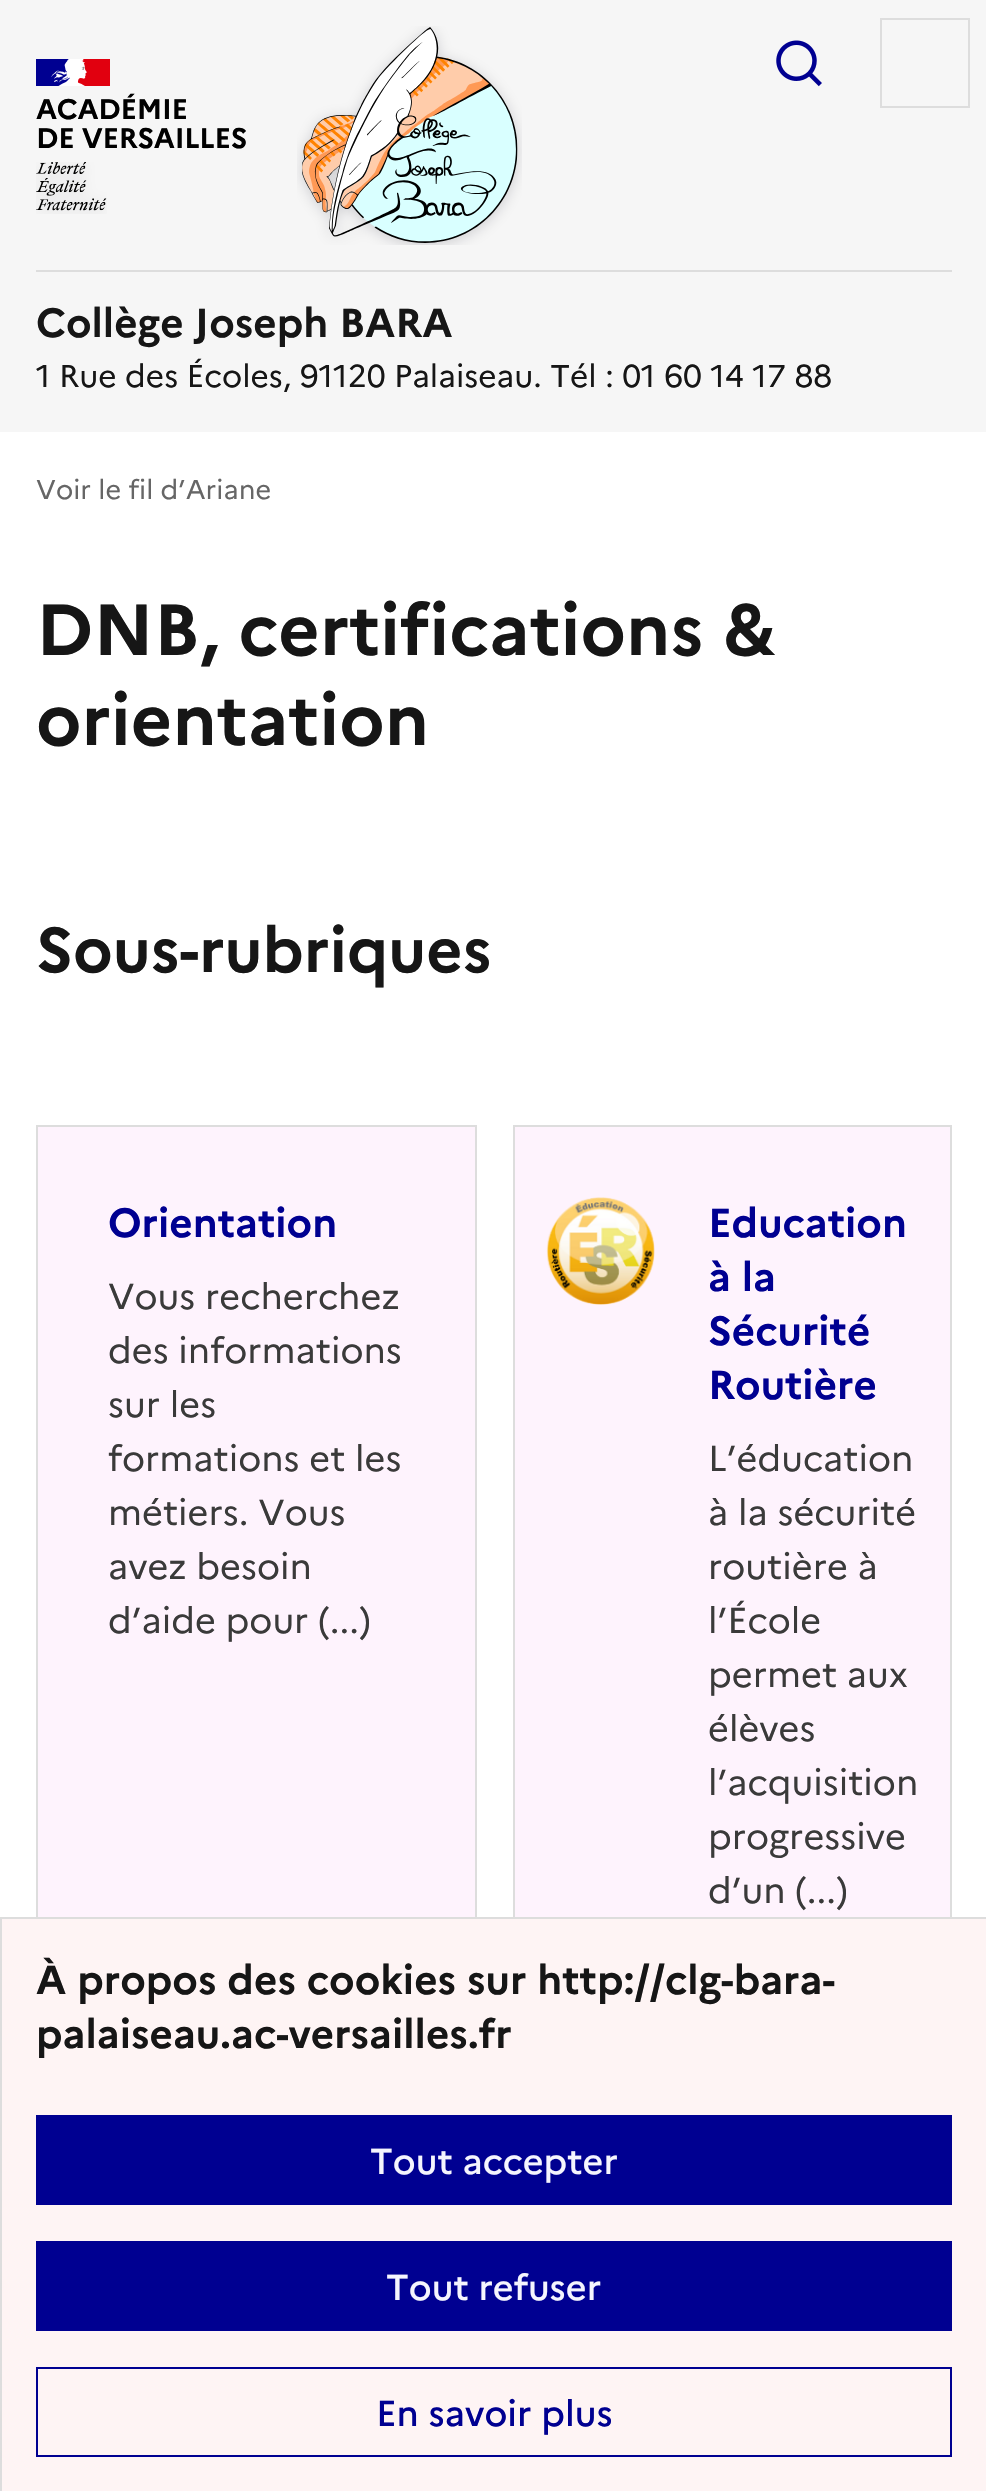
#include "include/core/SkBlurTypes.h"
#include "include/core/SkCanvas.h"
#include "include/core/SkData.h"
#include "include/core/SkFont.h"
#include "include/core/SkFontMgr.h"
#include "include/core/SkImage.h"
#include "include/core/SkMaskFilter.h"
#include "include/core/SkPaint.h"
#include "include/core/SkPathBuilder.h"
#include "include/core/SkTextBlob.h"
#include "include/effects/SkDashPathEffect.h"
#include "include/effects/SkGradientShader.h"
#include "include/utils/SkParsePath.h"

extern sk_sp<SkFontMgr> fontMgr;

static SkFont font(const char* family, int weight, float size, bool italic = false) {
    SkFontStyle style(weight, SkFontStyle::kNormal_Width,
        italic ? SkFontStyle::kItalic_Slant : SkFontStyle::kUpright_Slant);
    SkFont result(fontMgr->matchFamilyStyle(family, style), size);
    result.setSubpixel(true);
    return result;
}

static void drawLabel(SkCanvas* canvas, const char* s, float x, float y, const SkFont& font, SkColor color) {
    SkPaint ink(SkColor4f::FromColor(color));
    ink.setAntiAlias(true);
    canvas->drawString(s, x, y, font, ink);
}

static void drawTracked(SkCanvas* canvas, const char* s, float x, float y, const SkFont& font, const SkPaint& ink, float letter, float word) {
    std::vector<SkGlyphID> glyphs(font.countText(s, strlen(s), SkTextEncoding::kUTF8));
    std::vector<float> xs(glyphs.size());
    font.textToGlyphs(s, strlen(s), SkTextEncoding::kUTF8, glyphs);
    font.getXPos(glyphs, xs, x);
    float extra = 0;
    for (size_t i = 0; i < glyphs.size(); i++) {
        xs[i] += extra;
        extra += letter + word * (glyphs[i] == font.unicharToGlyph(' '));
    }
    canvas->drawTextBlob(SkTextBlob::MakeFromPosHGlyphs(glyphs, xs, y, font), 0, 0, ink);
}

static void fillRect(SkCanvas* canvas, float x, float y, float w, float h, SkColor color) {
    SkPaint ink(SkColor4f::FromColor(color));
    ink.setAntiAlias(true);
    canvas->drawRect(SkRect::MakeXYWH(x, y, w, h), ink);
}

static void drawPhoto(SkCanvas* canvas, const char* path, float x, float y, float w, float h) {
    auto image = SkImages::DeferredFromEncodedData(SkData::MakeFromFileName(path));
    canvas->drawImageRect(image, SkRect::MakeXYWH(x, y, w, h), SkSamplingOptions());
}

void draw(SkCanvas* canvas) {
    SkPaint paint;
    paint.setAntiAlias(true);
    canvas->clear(0xFFFFFFFF);
    fillRect(canvas, 0, 0, 986, 432, 0xFFF6F6F6);
    fillRect(canvas, 36, 59, 34, 27, 0xFF000091);
    fillRect(canvas, 77, 59, 33, 27, 0xFFE1000F);
    drawPhoto(canvas, "assets/img1.png", 51, 59, 36, 27);
    SkFont font1 = font("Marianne", 700, 28.25f);
    paint.setColor(0xFF000000);
    drawTracked(canvas, "ACADÉMIE", 36, 119, font1, paint, -0.25f, 0);
    drawTracked(canvas, "DE VERSAILLES", 36, 148, font1, paint, -0.25f, 0);
    drawPhoto(canvas, "assets/img2.png", 36, 162, 71, 52);
    drawPhoto(canvas, "assets/img3.png", 297, 26, 225, 219);
    drawPhoto(canvas, "assets/img4.png", 776, 40, 46, 47);
    paint.setStroke(true);
    paint.setStrokeWidth(2);
    paint.setColor(0xFFDDDDDD);
    canvas->drawRect(SkRect::MakeXYWH(881, 19, 88, 88), paint);
    fillRect(canvas, 36, 270, 916, 2, 0xFFDDDDDD);
    SkFont font2 = font("Marianne", 700, 40.5f);
    drawLabel(canvas, "Collège Joseph BARA", 36, 337, font2, 0xFF161616);
    SkFont font3 = font("Marianne", 400, 31.5f);
    drawLabel(canvas, "1 Rue des Écoles, 91120 Palaiseau. Tél : 01 60 14 17 88", 36, 387, font3, 0xFF161616);
    SkFont font4 = font("Marianne", 400, 27);
    drawLabel(canvas, "Voir le fil d’Ariane", 36, 499, font4, 0xFF666666);
    SkFont font5 = font("Marianne", 700, 72);
    drawLabel(canvas, "DNB, certifications &", 36, 655, font5, 0xFF161616);
    drawLabel(canvas, "orientation", 36, 745, font5, 0xFF161616);
    SkFont font6 = font("Marianne", 700, 63);
    drawLabel(canvas, "Sous-rubriques", 36, 972, font6, 0xFF161616);
    fillRect(canvas, 38, 1127, 437, 790, 0xFFFEF3FD);
    fillRect(canvas, 36, 1125, 441, 2, 0xFFDDDDDD);
    fillRect(canvas, 475, 1125, 2, 792, 0xFFDDDDDD);
    fillRect(canvas, 36, 1125, 2, 792, 0xFFDDDDDD);
    drawLabel(canvas, "Orientation", 108, 1237, font2, 0xFF000091);
    SkFont font7 = font("Marianne", 400, 36);
    drawLabel(canvas, "Vous recherchez", 108, 1309, font7, 0xFF3A3A3A);
    drawLabel(canvas, "des informations", 108, 1363, font7, 0xFF3A3A3A);
    drawLabel(canvas, "sur les", 108, 1417, font7, 0xFF3A3A3A);
    drawLabel(canvas, "formations et les", 108, 1471, font7, 0xFF3A3A3A);
    drawLabel(canvas, "métiers. Vous", 108, 1525, font7, 0xFF3A3A3A);
    drawLabel(canvas, "avez besoin", 108, 1579, font7, 0xFF3A3A3A);
    drawLabel(canvas, "d’aide pour (...)", 108, 1633, font7, 0xFF3A3A3A);
    fillRect(canvas, 515, 1127, 435, 790, 0xFFFEF3FD);
    fillRect(canvas, 513, 1125, 439, 2, 0xFFDDDDDD);
    fillRect(canvas, 950, 1125, 2, 792, 0xFFDDDDDD);
    fillRect(canvas, 513, 1125, 2, 792, 0xFFDDDDDD);
    drawPhoto(canvas, "assets/img5.png", 546, 1197, 109, 108);
    drawLabel(canvas, "Education", 708, 1237, font2, 0xFF000091);
    drawLabel(canvas, "à la", 708, 1291, font2, 0xFF000091);
    drawLabel(canvas, "Sécurité", 708, 1345, font2, 0xFF000091);
    drawLabel(canvas, "Routière", 708, 1399, font2, 0xFF000091);
    drawLabel(canvas, "L’éducation", 708, 1471, font7, 0xFF3A3A3A);
    drawLabel(canvas, "à la sécurité", 708, 1525, font7, 0xFF3A3A3A);
    drawLabel(canvas, "routière à", 708, 1579, font7, 0xFF3A3A3A);
    drawLabel(canvas, "l’École", 708, 1633, font7, 0xFF3A3A3A);
    drawLabel(canvas, "permet aux", 708, 1687, font7, 0xFF3A3A3A);
    drawLabel(canvas, "élèves", 708, 1741, font7, 0xFF3A3A3A);
    drawLabel(canvas, "l’acquisition", 708, 1795, font7, 0xFF3A3A3A);
    drawLabel(canvas, "progressive", 708, 1849, font7, 0xFF3A3A3A);
    drawLabel(canvas, "d’un (...)", 708, 1903, font7, 0xFF3A3A3A);
    paint.setStroke(false);
    paint.setColor(0xFFFEF4F4);
    canvas->drawRect(SkRect::MakeXYWH(1, 1918, 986, 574), paint);
    paint.setStroke(true);
    paint.setColor(0xFFDDDDDD);
    canvas->drawRect(SkRect::MakeXYWH(1, 1918, 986, 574), paint);
    drawLabel(canvas, "À propos des cookies sur http://clg-bara-", 36, 1994, font2, 0xFF161616);
    drawLabel(canvas, "palaiseau.ac-versailles.fr", 36, 2048, font2, 0xFF161616);
    fillRect(canvas, 36, 2115, 916, 90, 0xFF000091);
    SkFont font8 = font("Marianne", 500, 36);
    drawLabel(canvas, "Tout accepter", 370, 2174, font8, 0xFFF5F5FE);
    fillRect(canvas, 36, 2241, 916, 90, 0xFF000091);
    drawLabel(canvas, "Tout refuser", 386, 2300, font8, 0xFFF5F5FE);
    paint.setColor(0xFF000091);
    canvas->drawRect(SkRect::MakeXYWH(37, 2368, 914, 88), paint);
    drawLabel(canvas, "En savoir plus", 376, 2426, font8, 0xFF000091);
}
